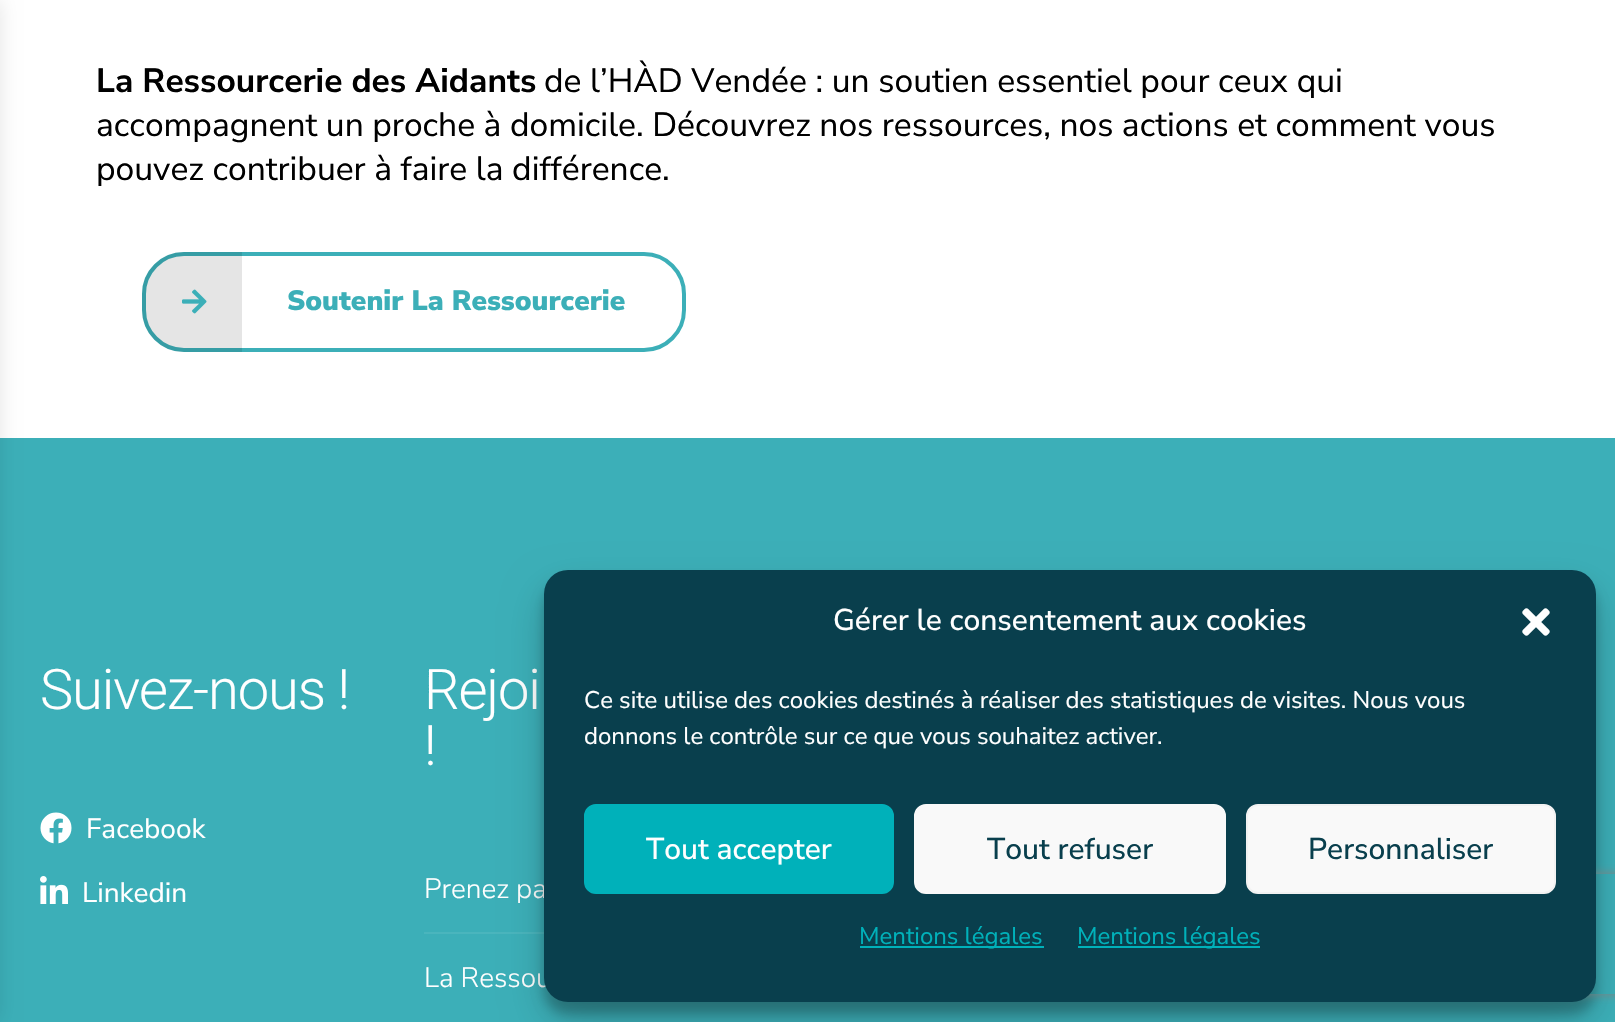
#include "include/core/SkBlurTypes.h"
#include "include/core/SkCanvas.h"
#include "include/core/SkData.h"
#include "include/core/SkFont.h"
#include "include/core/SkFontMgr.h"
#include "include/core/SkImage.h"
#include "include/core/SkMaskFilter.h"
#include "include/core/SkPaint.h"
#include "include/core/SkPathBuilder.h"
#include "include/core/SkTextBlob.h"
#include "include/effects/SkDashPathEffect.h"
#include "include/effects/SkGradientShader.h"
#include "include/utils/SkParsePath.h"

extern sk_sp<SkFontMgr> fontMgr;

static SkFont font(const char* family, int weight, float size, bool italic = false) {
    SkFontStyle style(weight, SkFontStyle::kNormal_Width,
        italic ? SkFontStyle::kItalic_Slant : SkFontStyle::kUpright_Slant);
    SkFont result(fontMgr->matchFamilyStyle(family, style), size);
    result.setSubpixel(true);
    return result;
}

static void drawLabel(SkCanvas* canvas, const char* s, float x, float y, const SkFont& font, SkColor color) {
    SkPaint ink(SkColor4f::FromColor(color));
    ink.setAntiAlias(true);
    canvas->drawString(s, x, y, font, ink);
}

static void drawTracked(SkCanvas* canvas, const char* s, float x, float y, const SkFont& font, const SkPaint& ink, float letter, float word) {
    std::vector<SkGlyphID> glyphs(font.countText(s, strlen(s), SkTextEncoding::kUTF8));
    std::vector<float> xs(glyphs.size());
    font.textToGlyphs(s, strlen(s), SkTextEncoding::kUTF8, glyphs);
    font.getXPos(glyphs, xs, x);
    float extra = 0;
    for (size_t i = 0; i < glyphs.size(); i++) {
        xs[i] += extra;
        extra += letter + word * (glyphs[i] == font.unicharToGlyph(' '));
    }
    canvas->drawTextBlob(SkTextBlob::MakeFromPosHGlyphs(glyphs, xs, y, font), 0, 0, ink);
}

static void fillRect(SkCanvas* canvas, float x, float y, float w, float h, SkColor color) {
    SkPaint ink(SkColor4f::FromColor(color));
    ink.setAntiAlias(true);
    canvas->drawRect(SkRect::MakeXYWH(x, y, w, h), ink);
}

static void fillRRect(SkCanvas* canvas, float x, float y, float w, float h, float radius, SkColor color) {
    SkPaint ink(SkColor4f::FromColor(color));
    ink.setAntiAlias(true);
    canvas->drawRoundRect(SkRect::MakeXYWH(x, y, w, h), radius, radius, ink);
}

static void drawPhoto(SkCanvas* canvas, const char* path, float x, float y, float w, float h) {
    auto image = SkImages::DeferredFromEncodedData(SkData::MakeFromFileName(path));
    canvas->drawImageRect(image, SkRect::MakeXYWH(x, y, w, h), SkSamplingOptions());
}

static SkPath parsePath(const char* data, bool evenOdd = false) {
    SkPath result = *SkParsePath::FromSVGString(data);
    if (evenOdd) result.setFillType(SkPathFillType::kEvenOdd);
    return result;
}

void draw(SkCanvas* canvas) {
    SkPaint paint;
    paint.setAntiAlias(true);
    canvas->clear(0xFFFFFFFF);
    fillRect(canvas, 0, 438, 1615, 584, 0xFF3CAFB8);
    paint.setColor(0x1A000000);
    paint.setMaskFilter(SkMaskFilter::MakeBlur(kNormal_SkBlurStyle, 10));
    canvas->drawRect(SkRect::MakeXYWH(-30, 0, 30, 1022), paint);
    paint.setMaskFilter(nullptr);
    SkFont font1 = font("Nunito Sans", 700, 33.6f);
    drawLabel(canvas, "La Ressourcerie des Aidants", 96, 92, font1, 0xFF000000);
    SkFont font2 = font("Nunito Sans", 400, 33.6f);
    drawLabel(canvas, "de l’HÀD Vendée : un soutien essentiel pour ceux qui", 544, 92, font2, 0xFF000000);
    paint.setColor(0xFF000000);
    drawTracked(canvas, "accompagnent un proche à domicile. Découvrez nos ressources, nos actions et comment vous", 96, 136, font2, paint, 0, -0.1f);
    drawTracked(canvas, "pouvez contribuer à faire la différence.", 96, 180, font2, paint, 0, -0.1f);
    paint.setStroke(true);
    paint.setStrokeWidth(4);
    paint.setColor(0xFF3CAFB8);
    canvas->drawRoundRect(SkRect::MakeXYWH(144, 254, 540, 96), 40, 40, paint);
    paint.setStroke(false);
    paint.setColor(0x1A000000);
    canvas->drawPath(parsePath("M184 252H242V352H184C161 352 142 333 142 310V294C142 271 161 252 184 252Z"), paint);
    drawPhoto(canvas, "assets/img1.png", 182, 289, 25, 25);
    SkFont font3 = font("Nunito Sans", 900, 28);
    drawLabel(canvas, "Soutenir La Ressourcerie", 287, 310, font3, 0xFF3CAFB8);
    SkFont font4 = font("Roboto", 300, 56);
    paint.setColor(0xFFFFFFFF);
    drawTracked(canvas, "Suivez-nous !", 40, 709, font4, paint, -1.1f, 0);
    drawPhoto(canvas, "assets/img2.png", 40, 812, 32, 32);
    SkFont font5 = font("Nunito Sans", 400, 28);
    drawLabel(canvas, "Facebook", 86, 838, font5, 0xFFFFFFFF);
    drawPhoto(canvas, "assets/img3.png", 40, 876, 28, 28);
    drawLabel(canvas, "Linkedin", 82, 902, font5, 0xFFFFFFFF);
    drawTracked(canvas, "Rejoi", 424, 709, font4, paint, -1.1f, 0);
    drawTracked(canvas, "!", 424, 765, font4, paint, -1.1f, 0);
    fillRect(canvas, 424, 932, 120, 2, 0xFF4AB5BD);
    SkFont font6 = font("Nunito Sans", 300, 28);
    drawLabel(canvas, "Prenez pa", 424, 898, font6, 0xFFFFFFFF);
    drawLabel(canvas, "La Ressou", 424, 987, font6, 0xFFFFFFFF);
    paint.setColor(0x3B000000);
    paint.setMaskFilter(SkMaskFilter::MakeBlur(kNormal_SkBlurStyle, 6));
    canvas->drawRoundRect(SkRect::MakeXYWH(544, 582, 1052, 432), 24, 24, paint);
    paint.setMaskFilter(nullptr);
    paint.setColor(0x30000000);
    paint.setMaskFilter(SkMaskFilter::MakeBlur(kNormal_SkBlurStyle, 20));
    canvas->drawRoundRect(SkRect::MakeXYWH(544, 590, 1052, 432), 24, 24, paint);
    paint.setMaskFilter(nullptr);
    canvas->save();
    canvas->clipPath(parsePath("M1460 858H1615V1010H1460ZM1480 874H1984C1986 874 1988 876 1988 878V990C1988 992 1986 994 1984 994H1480C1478 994 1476 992 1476 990V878C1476 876 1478 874 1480 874Z", true), true);
    paint.setColor(0xFF808080);
    paint.setMaskFilter(SkMaskFilter::MakeBlur(kNormal_SkBlurStyle, 5));
    canvas->drawRoundRect(SkRect::MakeXYWH(1476, 874, 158, 120), 4, 4, paint);
    paint.setMaskFilter(nullptr);
    canvas->restore();
    fillRRect(canvas, 544, 570, 1052, 432, 24, 0xFF093F4D);
    SkFont font7 = font("Nunito Sans", 500, 30);
    drawLabel(canvas, "Gérer le consentement aux cookies", 833, 630, font7, 0xFFFFFFFF);
    drawPhoto(canvas, "assets/img4.png", 1522, 608, 28, 28);
    SkFont font8 = font("Nunito Sans", 400, 24);
    drawLabel(canvas, "Ce site utilise des cookies destinés à réaliser des statistiques de visites. Nous vous", 584, 708, font8, 0xFFFFFFFF);
    drawLabel(canvas, "donnons le contrôle sur ce que vous souhaitez activer.", 584, 744, font8, 0xFFFFFFFF);
    paint.setColor(0xFF00B1BA);
    canvas->drawRoundRect(SkRect::MakeXYWH(585, 805, 308, 88), 11, 11, paint);
    paint.setStroke(true);
    paint.setStrokeWidth(2);
    canvas->drawRoundRect(SkRect::MakeXYWH(585, 805, 308, 88), 11, 11, paint);
    drawLabel(canvas, "Tout accepter", 646, 859, font7, 0xFFFFFFFF);
    paint.setStroke(false);
    paint.setColor(0xFFF9F9F9);
    canvas->drawRoundRect(SkRect::MakeXYWH(915, 805, 310, 88), 11, 11, paint);
    paint.setStroke(true);
    canvas->drawRoundRect(SkRect::MakeXYWH(915, 805, 310, 88), 11, 11, paint);
    drawLabel(canvas, "Tout refuser", 987, 859, font7, 0xFF093F4D);
    paint.setStroke(false);
    canvas->drawRoundRect(SkRect::MakeXYWH(1247, 805, 308, 88), 11, 11, paint);
    paint.setStroke(true);
    paint.setColor(0xFFF2F2F2);
    canvas->drawRoundRect(SkRect::MakeXYWH(1247, 805, 308, 88), 11, 11, paint);
    drawLabel(canvas, "Personnaliser", 1308, 859, font7, 0xFF093F4D);
    fillRect(canvas, 860, 946, 184, 2, 0xFF00B1BA);
    drawLabel(canvas, "Mentions légales", 859, 944, font8, 0xFF00B1BA);
    fillRect(canvas, 1078, 946, 182, 2, 0xFF00B1BA);
    drawLabel(canvas, "Mentions légales", 1077, 944, font8, 0xFF00B1BA);
}
